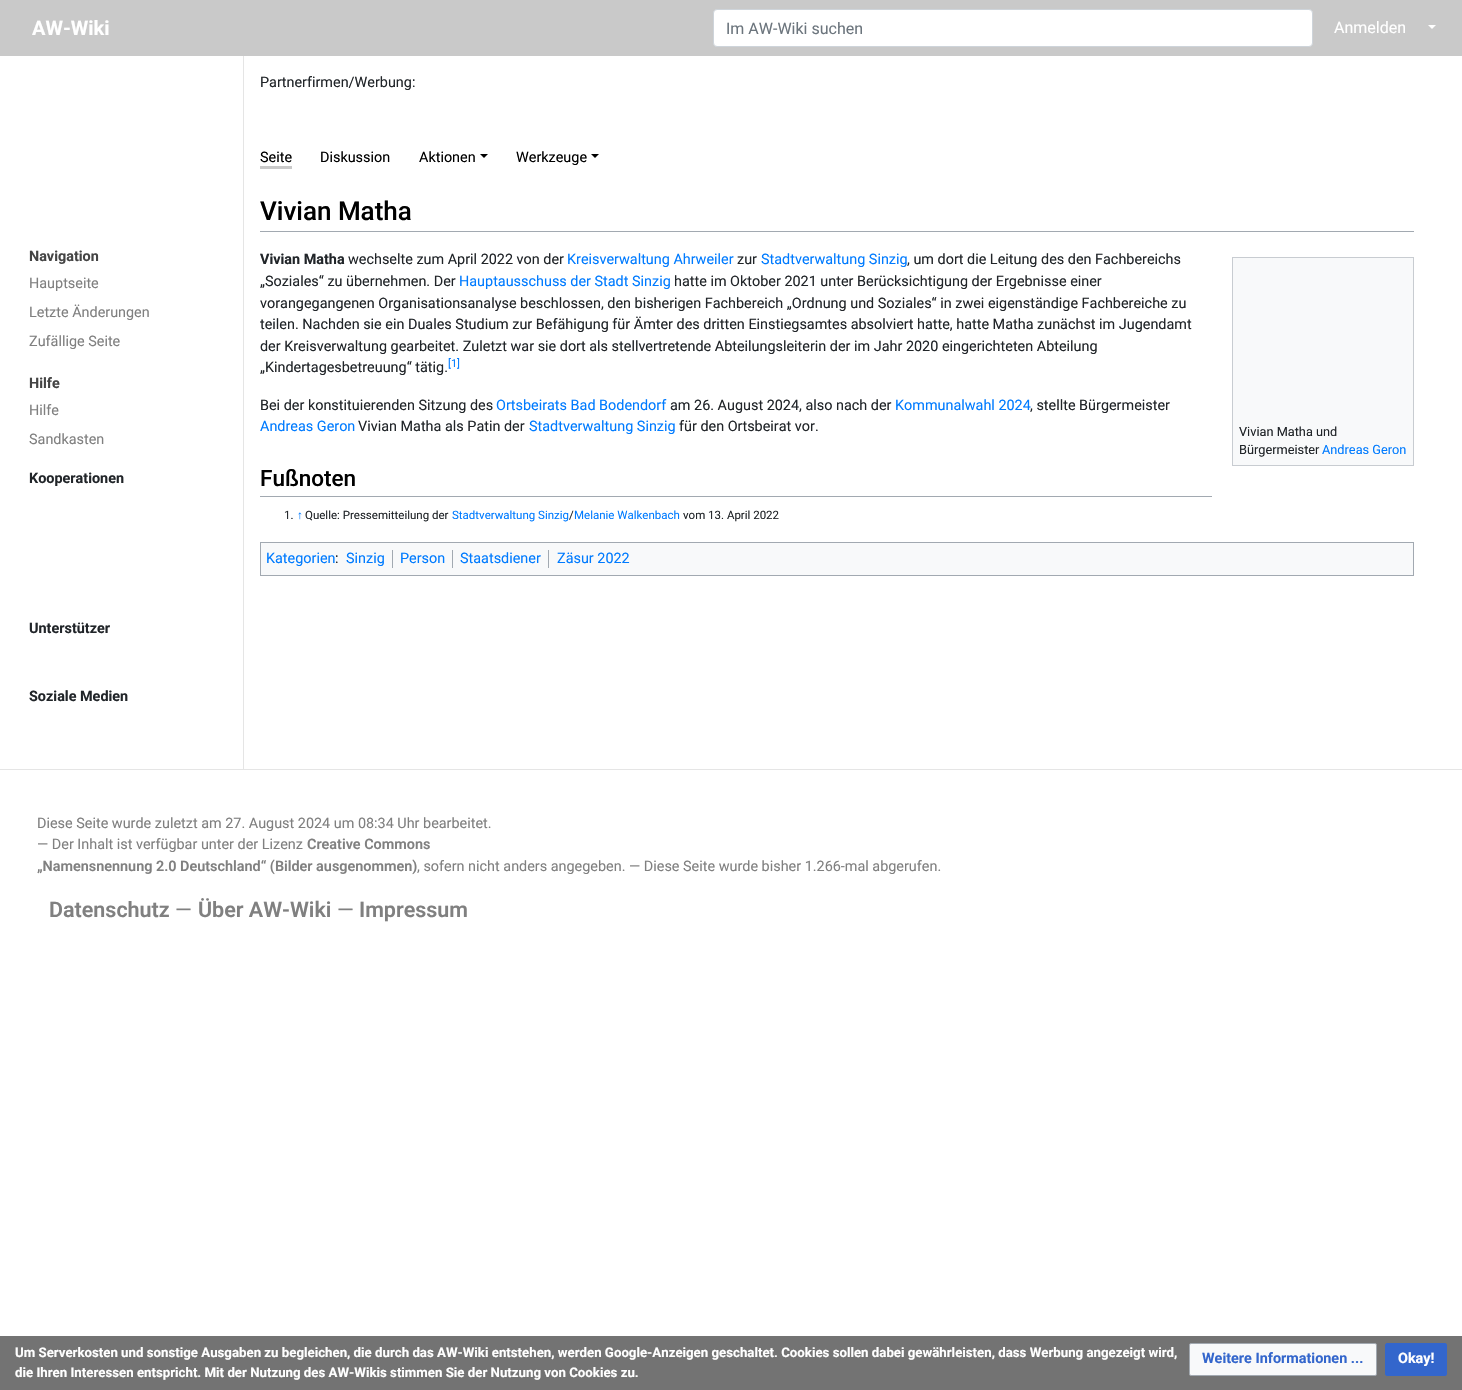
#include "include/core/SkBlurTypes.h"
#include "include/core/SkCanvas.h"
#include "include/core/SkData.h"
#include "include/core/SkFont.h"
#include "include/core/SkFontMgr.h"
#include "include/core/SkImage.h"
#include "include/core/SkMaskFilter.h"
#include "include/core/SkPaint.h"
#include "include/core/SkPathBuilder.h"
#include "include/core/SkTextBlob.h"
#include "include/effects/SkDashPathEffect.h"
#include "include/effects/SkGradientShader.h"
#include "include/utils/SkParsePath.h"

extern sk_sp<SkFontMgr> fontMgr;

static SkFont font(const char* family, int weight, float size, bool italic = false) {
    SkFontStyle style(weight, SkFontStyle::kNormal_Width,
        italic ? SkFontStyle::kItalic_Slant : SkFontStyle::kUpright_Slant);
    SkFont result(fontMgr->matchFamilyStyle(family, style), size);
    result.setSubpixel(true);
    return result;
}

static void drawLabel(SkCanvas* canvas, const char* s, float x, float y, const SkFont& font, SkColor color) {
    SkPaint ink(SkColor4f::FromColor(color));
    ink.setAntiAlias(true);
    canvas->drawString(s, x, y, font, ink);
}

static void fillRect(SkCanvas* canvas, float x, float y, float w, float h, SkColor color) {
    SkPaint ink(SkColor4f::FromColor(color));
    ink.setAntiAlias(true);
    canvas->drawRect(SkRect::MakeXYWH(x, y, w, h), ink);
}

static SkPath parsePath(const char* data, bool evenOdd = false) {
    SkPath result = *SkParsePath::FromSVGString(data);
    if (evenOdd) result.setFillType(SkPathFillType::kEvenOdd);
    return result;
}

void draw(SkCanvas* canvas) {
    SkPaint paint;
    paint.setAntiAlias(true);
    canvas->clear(0xFFFFFFFF);
    fillRect(canvas, 0, 0, 1462, 56, 0xFFC9C9C9);
    SkFont font1 = font("Roboto", 700, 20);
    drawLabel(canvas, "AW-Wiki", 32, 35, font1, 0xFFFFFFFF);
    paint.setColor(0xFFFFFFFF);
    canvas->drawRoundRect(SkRect::MakeXYWH(713.5f, 9.5f, 599, 37), 3.5f, 3.5f, paint);
    paint.setStroke(true);
    paint.setStrokeWidth(1);
    paint.setColor(0xFFCED4DA);
    canvas->drawRoundRect(SkRect::MakeXYWH(713.5f, 9.5f, 599, 37), 3.5f, 3.5f, paint);
    SkFont font2 = font("Roboto", 400, 16);
    drawLabel(canvas, "Im AW-Wiki suchen", 726, 34, font2, 0xFF6C757D);
    drawLabel(canvas, "Anmelden", 1334, 33, font2, 0xFFFFFFFF);
    paint.setStroke(false);
    paint.setColor(0xFFFFFFFF);
    canvas->drawPath(parsePath("M1428 25H1436L1432 29Z"), paint);
    SkFont font3 = font("Roboto", 400, 14.4f);
    drawLabel(canvas, "Partnerfirmen/Werbung:", 260, 87, font3, 0xFF212529);
    drawLabel(canvas, "Seite", 260, 162, font3, 0xFF000000);
    fillRect(canvas, 260, 166, 32, 3, 0xFFC9C9C9);
    drawLabel(canvas, "Diskussion", 320, 162, font3, 0xFF000000);
    drawLabel(canvas, "Aktionen", 419, 162, font3, 0xFF000000);
    paint.setColor(0xFF000000);
    canvas->drawPath(parsePath("M480 154H488L484 158Z"), paint);
    drawLabel(canvas, "Werkzeuge", 516, 162, font3, 0xFF000000);
    canvas->drawPath(parsePath("M591 154H599L595 158Z"), paint);
    fillRect(canvas, 260, 231, 1154, 1, 0xFFA2A9B1);
    SkFont font4 = font("Roboto", 500, 26);
    drawLabel(canvas, "Vivian Matha", 260, 220, font4, 0xFF000000);
    SkFont font5 = font("Roboto", 700, 14.4f);
    drawLabel(canvas, "Vivian Matha", 260, 264, font5, 0xFF212529);
    drawLabel(canvas, "wechselte zum April 2022 von der", 348, 264, font3, 0xFF212529);
    drawLabel(canvas, "Kreisverwaltung Ahrweiler", 567, 264, font3, 0xFF007BFF);
    drawLabel(canvas, "zur", 737, 264, font3, 0xFF212529);
    drawLabel(canvas, "Stadtverwaltung Sinzig", 761, 264, font3, 0xFF007BFF);
    drawLabel(canvas, ", um dort die Leitung des den Fachbereichs", 907, 264, font3, 0xFF212529);
    drawLabel(canvas, "„Soziales“ zu übernehmen. Der", 260, 286, font3, 0xFF212529);
    drawLabel(canvas, "Hauptausschuss der Stadt Sinzig", 459, 286, font3, 0xFF007BFF);
    drawLabel(canvas, "hatte im Oktober 2021 unter Berücksichtigung der Ergebnisse einer", 674, 286, font3, 0xFF212529);
    drawLabel(canvas, "vorangegangenen Organisationsanalyse beschlossen, den bisherigen Fachbereich „Ordnung und Soziales“ in zwei eigenständige Fachbereiche zu", 260, 308, font3, 0xFF212529);
    drawLabel(canvas, "teilen. Nachden sie ein Duales Studium zur Befähigung für Ämter des dritten Einstiegsamtes absolviert hatte, hatte Matha zunächst im Jugendamt", 260, 329, font3, 0xFF212529);
    drawLabel(canvas, "der Kreisverwaltung gearbeitet. Zuletzt war sie dort als stellvertretende Abteilungsleiterin der im Jahr 2020 eingerichteten Abteilung", 260, 351, font3, 0xFF212529);
    drawLabel(canvas, "„Kindertagesbetreuung“ tätig.", 260, 372, font3, 0xFF212529);
    SkFont font6 = font("Roboto", 400, 11);
    drawLabel(canvas, "[1]", 448, 367, font6, 0xFF007BFF);
    drawLabel(canvas, "Bei der konstituierenden Sitzung des", 260, 410, font3, 0xFF212529);
    drawLabel(canvas, "Ortsbeirats Bad Bodendorf", 496, 410, font3, 0xFF007BFF);
    drawLabel(canvas, "am 26. August 2024, also nach der", 670, 410, font3, 0xFF212529);
    drawLabel(canvas, "Kommunalwahl 2024", 895, 410, font3, 0xFF007BFF);
    drawLabel(canvas, ", stellte Bürgermeister", 1030, 410, font3, 0xFF212529);
    drawLabel(canvas, "Andreas Geron", 260, 431, font3, 0xFF007BFF);
    drawLabel(canvas, "Vivian Matha als Patin der", 358, 431, font3, 0xFF212529);
    drawLabel(canvas, "Stadtverwaltung Sinzig", 529, 431, font3, 0xFF007BFF);
    drawLabel(canvas, "für den Ortsbeirat vor.", 679, 431, font3, 0xFF212529);
    paint.setColor(0xFFF8F9FA);
    canvas->drawRect(SkRect::MakeXYWH(1232.5f, 257.5f, 181, 208), paint);
    paint.setStroke(true);
    paint.setColor(0xFFC8CCD1);
    canvas->drawRect(SkRect::MakeXYWH(1232.5f, 257.5f, 181, 208), paint);
    SkFont font7 = font("Roboto", 400, 12.75f);
    drawLabel(canvas, "Vivian Matha und", 1239, 436, font7, 0xFF212529);
    drawLabel(canvas, "Bürgermeister", 1239, 454, font7, 0xFF212529);
    drawLabel(canvas, "Andreas Geron", 1322, 454, font7, 0xFF007BFF);
    fillRect(canvas, 260, 496, 952, 1, 0xFFA2A9B1);
    SkFont font8 = font("Roboto", 500, 22.5f);
    drawLabel(canvas, "Fußnoten", 260, 486, font8, 0xFF000000);
    SkFont font9 = font("Roboto", 400, 11.5f);
    drawLabel(canvas, "1.", 284, 519, font9, 0xFF212529);
    SkFont font10 = font("Liberation Sans", 400, 11.5f);
    drawLabel(canvas, "↑", 297, 519, font10, 0xFF007BFF);
    drawLabel(canvas, "Quelle: Pressemitteilung der", 305, 519, font9, 0xFF212529);
    drawLabel(canvas, "Stadtverwaltung Sinzig", 452, 519, font9, 0xFF007BFF);
    drawLabel(canvas, "/", 569, 519, font9, 0xFF212529);
    drawLabel(canvas, "Melanie Walkenbach", 574, 519, font9, 0xFF007BFF);
    drawLabel(canvas, "vom 13. April 2022", 683, 519, font9, 0xFF212529);
    paint.setStroke(false);
    paint.setColor(0xFFF8F9FA);
    canvas->drawRect(SkRect::MakeXYWH(260.5f, 542.5f, 1153, 33), paint);
    paint.setStroke(true);
    paint.setColor(0xFFA2A9B1);
    canvas->drawRect(SkRect::MakeXYWH(260.5f, 542.5f, 1153, 33), paint);
    drawLabel(canvas, "Kategorien", 266, 563, font3, 0xFF007BFF);
    drawLabel(canvas, ":", 335, 563, font3, 0xFF212529);
    drawLabel(canvas, "Sinzig", 346, 563, font3, 0xFF007BFF);
    fillRect(canvas, 392, 550, 1, 18, 0xFFA2A9B1);
    drawLabel(canvas, "Person", 400, 563, font3, 0xFF007BFF);
    fillRect(canvas, 452, 550, 1, 18, 0xFFA2A9B1);
    drawLabel(canvas, "Staatsdiener", 460, 563, font3, 0xFF007BFF);
    fillRect(canvas, 548, 550, 1, 18, 0xFFA2A9B1);
    drawLabel(canvas, "Zäsur 2022", 557, 563, font3, 0xFF007BFF);
    fillRect(canvas, 0, 1336, 1462, 54, 0xFF737373);
    SkFont font11 = font("Roboto", 700, 13.25f);
    drawLabel(canvas, "Um Serverkosten und sonstige Ausgaben zu begleichen, die durch das AW-Wiki entstehen, werden Google-Anzeigen geschaltet. Cookies sollen dabei gewährleisten, dass Werbung angezeigt wird,", 15, 1357, font11, 0xFFFFFFFF);
    drawLabel(canvas, "die Ihren Interessen entspricht. Mit der Nutzung des AW-Wikis stimmen Sie der Nutzung von Cookies zu.", 15, 1377, font11, 0xFFFFFFFF);
    paint.setStroke(false);
    paint.setColor(0xFFF8F9FA);
    canvas->drawRoundRect(SkRect::MakeXYWH(1189.5f, 1343.5f, 187, 32), 1.5f, 1.5f, paint);
    paint.setStroke(true);
    paint.setColor(0xFFA2A9B1);
    canvas->drawRoundRect(SkRect::MakeXYWH(1189.5f, 1343.5f, 187, 32), 1.5f, 1.5f, paint);
    drawLabel(canvas, "Weitere Informationen ...", 1202, 1363, font5, 0xFF3366CC);
    paint.setStroke(false);
    paint.setColor(0xFF3366CC);
    canvas->drawRoundRect(SkRect::MakeXYWH(1385.5f, 1343.5f, 61, 32), 1.5f, 1.5f, paint);
    paint.setStroke(true);
    canvas->drawRoundRect(SkRect::MakeXYWH(1385.5f, 1343.5f, 61, 32), 1.5f, 1.5f, paint);
    drawLabel(canvas, "Okay!", 1398, 1363, font5, 0xFFFFFFFF);
    fillRect(canvas, 243, 56, 1, 713, 0xFFE5E5E5);
    drawLabel(canvas, "Navigation", 29, 261, font5, 0xFF444444);
    drawLabel(canvas, "Hauptseite", 29, 288, font3, 0xFF808080);
    drawLabel(canvas, "Letzte Änderungen", 29, 317, font3, 0xFF808080);
    drawLabel(canvas, "Zufällige Seite", 29, 346, font3, 0xFF808080);
    drawLabel(canvas, "Hilfe", 29, 388, font5, 0xFF444444);
    drawLabel(canvas, "Hilfe", 29, 415, font3, 0xFF808080);
    drawLabel(canvas, "Sandkasten", 29, 444, font3, 0xFF808080);
    drawLabel(canvas, "Kooperationen", 29, 483, font5, 0xFF212529);
    drawLabel(canvas, "Unterstützer", 29, 633, font5, 0xFF212529);
    drawLabel(canvas, "Soziale Medien", 29, 701, font5, 0xFF212529);
    fillRect(canvas, 0, 769, 1462, 1, 0xFFE5E5E5);
    drawLabel(canvas, "Diese Seite wurde zuletzt am 27. August 2024 um 08:34 Uhr bearbeitet.", 37, 828, font3, 0xFF808080);
    drawLabel(canvas, "― Der Inhalt ist verfügbar unter der Lizenz", 37, 849, font3, 0xFF808080);
    SkFont font12 = font("Roboto", 600, 14.4f);
    drawLabel(canvas, "Creative Commons", 307, 849, font12, 0xFF808080);
    drawLabel(canvas, "„Namensnennung 2.0 Deutschland“ (Bilder ausgenommen)", 37, 871, font12, 0xFF808080);
    drawLabel(canvas, ", sofern nicht anders angegeben. ― Diese Seite wurde bisher 1.266-mal abgerufen.", 417, 871, font3, 0xFF808080);
    SkFont font13 = font("Roboto", 600, 21.5f);
    drawLabel(canvas, "Datenschutz", 49, 917, font13, 0xFF808080);
    SkFont font14 = font("Roboto", 400, 21.5f);
    drawLabel(canvas, "―", 175, 917, font14, 0xFF808080);
    drawLabel(canvas, "Über AW-Wiki", 198, 917, font13, 0xFF808080);
    drawLabel(canvas, "―", 337, 917, font14, 0xFF808080);
    drawLabel(canvas, "Impressum", 359, 917, font13, 0xFF808080);
}
